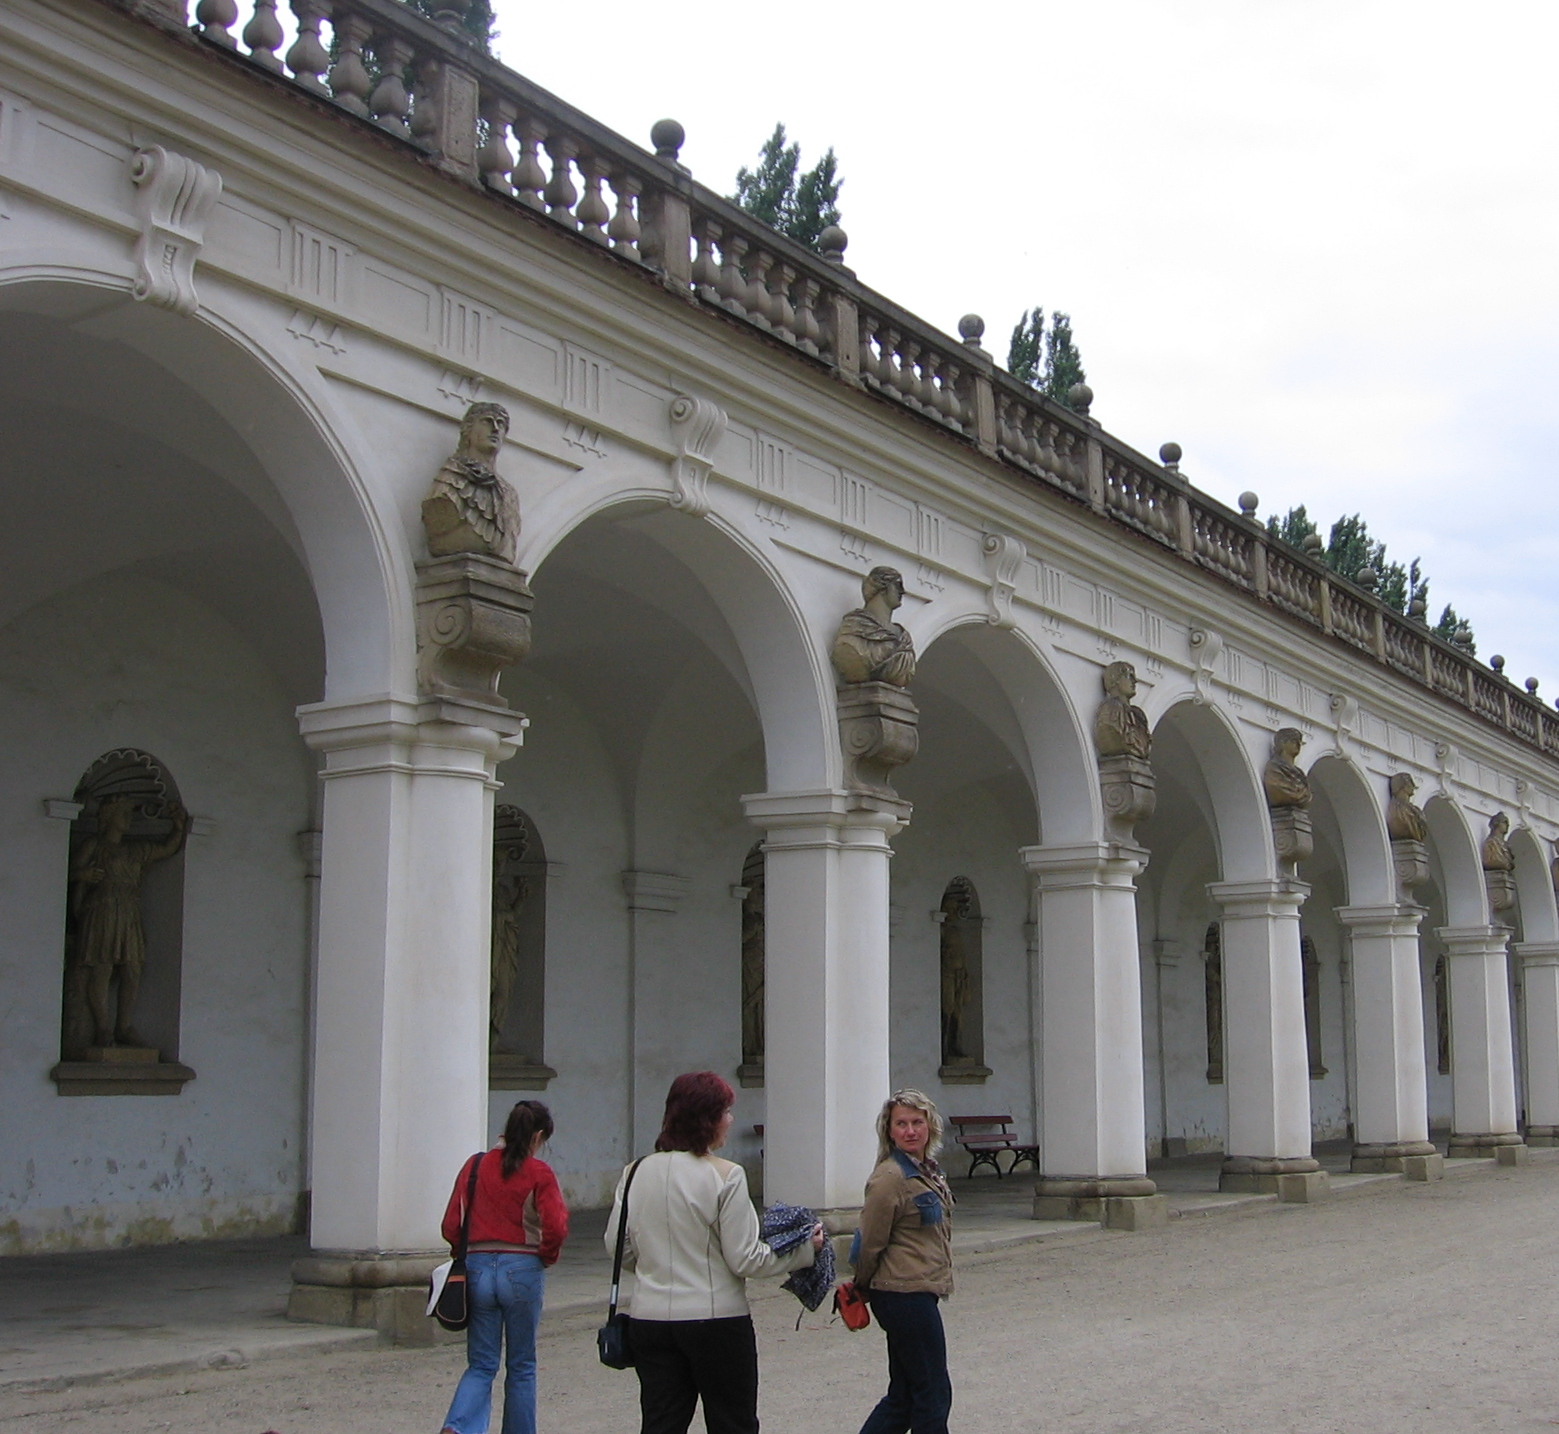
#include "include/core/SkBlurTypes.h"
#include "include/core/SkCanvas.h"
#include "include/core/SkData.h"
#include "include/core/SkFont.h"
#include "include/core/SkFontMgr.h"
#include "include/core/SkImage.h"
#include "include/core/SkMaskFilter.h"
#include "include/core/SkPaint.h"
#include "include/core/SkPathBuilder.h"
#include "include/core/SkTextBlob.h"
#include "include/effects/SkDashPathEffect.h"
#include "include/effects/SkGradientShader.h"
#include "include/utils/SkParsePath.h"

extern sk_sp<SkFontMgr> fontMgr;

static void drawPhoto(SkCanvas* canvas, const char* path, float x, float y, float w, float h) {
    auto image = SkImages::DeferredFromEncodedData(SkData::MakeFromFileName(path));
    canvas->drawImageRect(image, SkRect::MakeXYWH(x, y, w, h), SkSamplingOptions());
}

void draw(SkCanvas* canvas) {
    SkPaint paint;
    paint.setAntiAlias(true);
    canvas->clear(0xFFFFFFFF);
    drawPhoto(canvas, "assets/img1.png", 0, 0, 1559, 1434);
}
